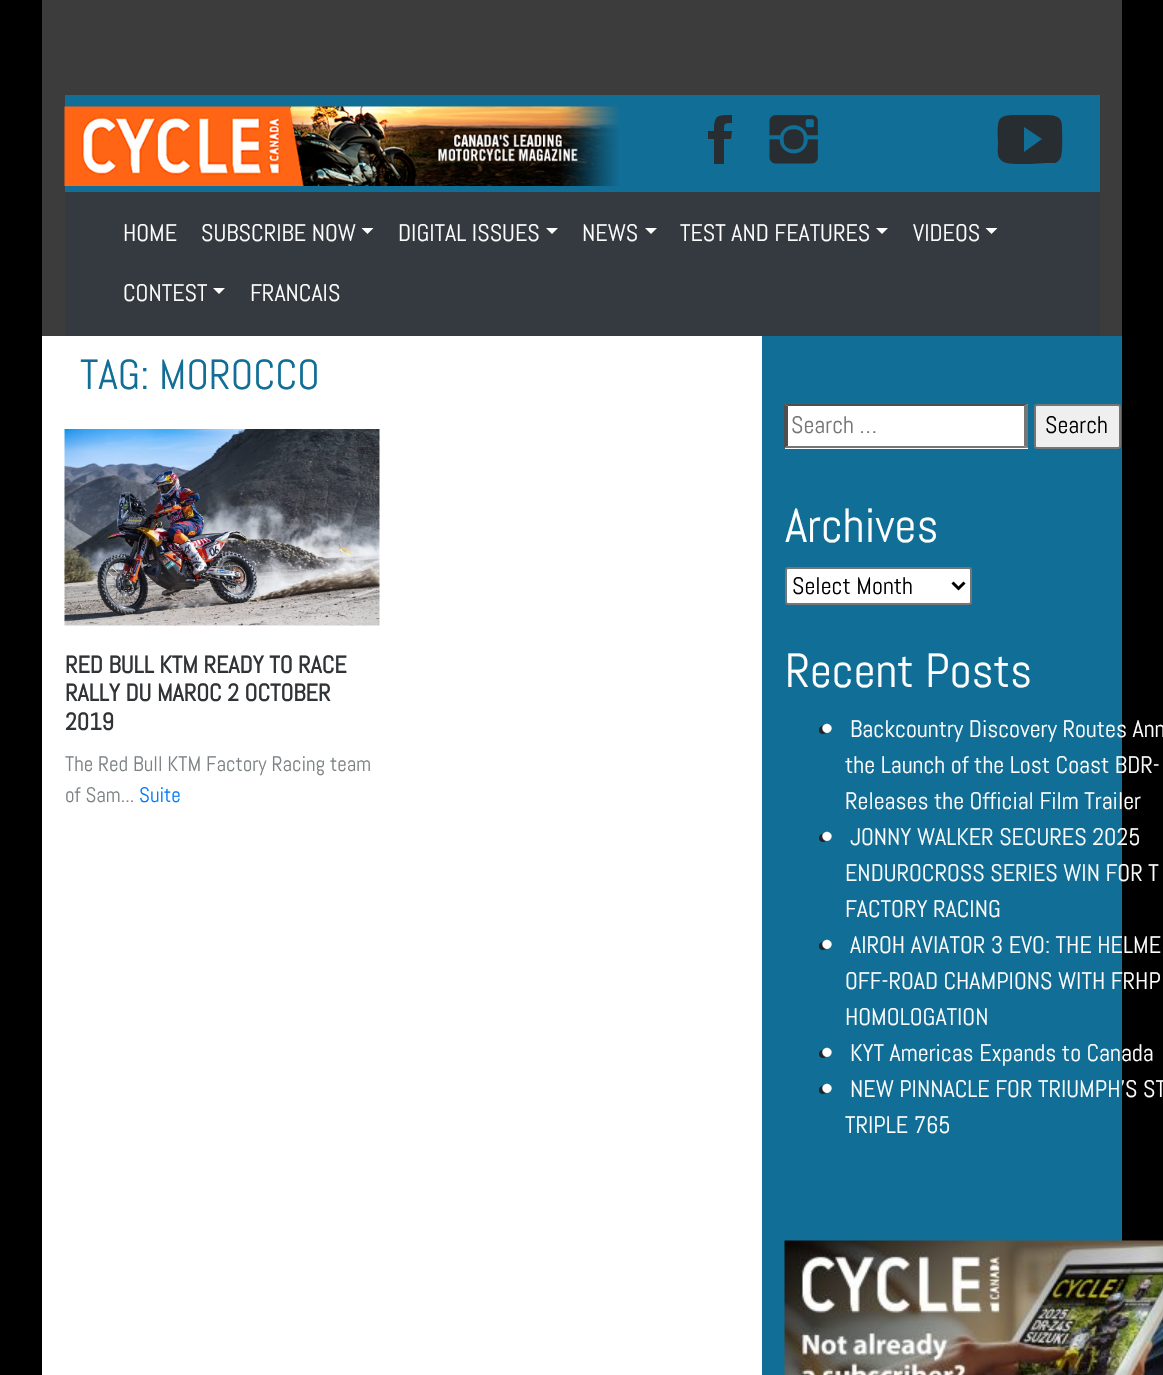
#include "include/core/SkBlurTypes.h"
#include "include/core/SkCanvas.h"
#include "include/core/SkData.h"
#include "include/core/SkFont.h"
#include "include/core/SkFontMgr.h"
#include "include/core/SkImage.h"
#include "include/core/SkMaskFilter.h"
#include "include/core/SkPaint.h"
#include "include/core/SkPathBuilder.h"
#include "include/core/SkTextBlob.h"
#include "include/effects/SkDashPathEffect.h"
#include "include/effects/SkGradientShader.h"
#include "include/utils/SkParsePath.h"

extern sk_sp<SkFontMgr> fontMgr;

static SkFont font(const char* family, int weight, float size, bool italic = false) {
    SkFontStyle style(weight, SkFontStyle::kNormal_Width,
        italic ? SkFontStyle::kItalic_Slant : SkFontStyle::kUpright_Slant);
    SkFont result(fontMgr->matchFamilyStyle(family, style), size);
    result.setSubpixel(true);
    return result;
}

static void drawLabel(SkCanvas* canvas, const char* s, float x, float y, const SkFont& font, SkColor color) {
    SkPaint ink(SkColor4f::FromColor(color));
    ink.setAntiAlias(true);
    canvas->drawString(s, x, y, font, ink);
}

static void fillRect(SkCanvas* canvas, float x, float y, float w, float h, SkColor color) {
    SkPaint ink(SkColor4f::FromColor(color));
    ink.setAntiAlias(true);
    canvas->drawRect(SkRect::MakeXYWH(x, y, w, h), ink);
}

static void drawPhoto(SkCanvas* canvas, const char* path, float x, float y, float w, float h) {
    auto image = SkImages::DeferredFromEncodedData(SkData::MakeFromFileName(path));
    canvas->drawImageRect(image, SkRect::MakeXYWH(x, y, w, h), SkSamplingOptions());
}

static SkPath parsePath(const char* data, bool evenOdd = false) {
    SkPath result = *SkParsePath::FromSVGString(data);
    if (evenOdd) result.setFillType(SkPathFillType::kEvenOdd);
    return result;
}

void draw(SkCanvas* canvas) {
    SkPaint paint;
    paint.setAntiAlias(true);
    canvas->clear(0xFF000000);
    fillRect(canvas, 42, 0, 1080, 336, 0xFF3C3C3C);
    fillRect(canvas, 65, 95, 1035, 97, 0xFF116E96);
    drawPhoto(canvas, "assets/img1.png", 64, 106, 555, 80);
    paint.setColor(0xFF282D32);
    canvas->drawPath(parsePath("M724 131H732L731 139H724V164H714V139H708V131H714C714 115 717 115 732 115V123C724 123 724 123 724 131Z"), paint);
    drawPhoto(canvas, "assets/img2.png", 769, 115, 49, 49);
    canvas->drawPath(parsePath("M1062 126C1062 133 1063 151 1061 157C1060 159 1058 162 1055 163H1047L1030 164C1024 164 1006 165 1002 161C996 157 998 149 998 143C997 114 997 115 1026 115H1042C1051 115 1062 114 1062 126ZM1024 152L1042 139L1024 127Z"), paint);
    fillRect(canvas, 65, 192, 1035, 144, 0xFF343A40);
    SkFont font1 = font("Abel", 400, 24);
    drawLabel(canvas, "HOME", 123, 241, font1, 0xFFFFFFFF);
    drawLabel(canvas, "SUBSCRIBE NOW", 201, 241, font1, 0xFFFFFFFF);
    paint.setColor(0xFFFFFFFF);
    canvas->drawPath(parsePath("M361.5 228H373.5L367.5 234Z"), paint);
    drawLabel(canvas, "DIGITAL ISSUES", 398, 241, font1, 0xFFFFFFFF);
    canvas->drawPath(parsePath("M546 228H558L552 234Z"), paint);
    drawLabel(canvas, "NEWS", 582, 241, font1, 0xFFFFFFFF);
    canvas->drawPath(parsePath("M645 228H657L651 234Z"), paint);
    drawLabel(canvas, "TEST AND FEATURES", 680, 241, font1, 0xFFFFFFFF);
    canvas->drawPath(parsePath("M876 228H888L882 234Z"), paint);
    drawLabel(canvas, "VIDEOS", 913, 241, font1, 0xFFFFFFFF);
    canvas->drawPath(parsePath("M985.5 228H997.5L991.5 234Z"), paint);
    drawLabel(canvas, "CONTEST", 123, 301, font1, 0xFFFFFFFF);
    canvas->drawPath(parsePath("M213 288H225L219 294Z"), paint);
    drawLabel(canvas, "FRANCAIS", 250, 301, font1, 0xFFFFFFFF);
    fillRect(canvas, 42, 336, 720, 1039, 0xFFFFFFFF);
    SkFont font2 = font("Abel", 400, 42);
    drawLabel(canvas, "TAG: MOROCCO", 80, 389, font2, 0xFF116E96);
    drawPhoto(canvas, "assets/img3.png", 64, 429, 316, 197);
    SkFont font3 = font("Abel", 700, 24);
    drawLabel(canvas, "RED BULL KTM READY TO RACE", 65, 673, font3, 0xFF313437);
    drawLabel(canvas, "RALLY DU MAROC 2 OCTOBER", 65, 701, font3, 0xFF313437);
    drawLabel(canvas, "2019", 65, 730, font3, 0xFF313437);
    SkFont font4 = font("Abel", 400, 21);
    drawLabel(canvas, "The Red Bull KTM Factory Racing team", 65, 771, font4, 0xFF7D8285);
    drawLabel(canvas, "of Sam...", 65, 802, font4, 0xFF7D8285);
    drawLabel(canvas, "Suite", 139, 802, font4, 0xFF007BFF);
    fillRect(canvas, 762, 336, 360, 1039, 0xFF116E96);
    fillRect(canvas, 785, 404, 243, 45, 0xFFFFFFFF);
    paint.setColor(0xFF4F4F4F);
    canvas->drawPath(parsePath("M784 404H1028L1024 406H788Z"), paint);
    paint.setColor(0xFF767676);
    canvas->drawPath(parsePath("M1028 404V448L1024 446V406Z"), paint);
    canvas->drawPath(parsePath("M1028 448H784L788 446H1024Z"), paint);
    paint.setColor(0xFF4F4F4F);
    canvas->drawPath(parsePath("M784 448V404L788 406V446Z"), paint);
    drawLabel(canvas, "Search …", 791, 433, font1, 0xFF757575);
    paint.setColor(0xFFEFEFEF);
    canvas->drawRoundRect(SkRect::MakeXYWH(1035, 405, 85, 43), 2, 2, paint);
    paint.setStroke(true);
    paint.setStrokeWidth(2);
    paint.setColor(0xFF767676);
    canvas->drawRoundRect(SkRect::MakeXYWH(1035, 405, 85, 43), 2, 2, paint);
    drawLabel(canvas, "Search", 1045, 433, font1, 0xFF000000);
    SkFont font5 = font("Abel", 400, 48);
    drawLabel(canvas, "Archives", 785, 542, font5, 0xFFFFFFFF);
    paint.setStroke(false);
    paint.setColor(0xFFFFFFFF);
    canvas->drawRoundRect(SkRect::MakeXYWH(786, 568, 185, 36), 2, 2, paint);
    paint.setStroke(true);
    paint.setColor(0xFF767676);
    canvas->drawRoundRect(SkRect::MakeXYWH(786, 568, 185, 36), 2, 2, paint);
    paint.setStrokeWidth(3);
    paint.setColor(0xFF000000);
    canvas->drawPath(parsePath("M952.5 582.5L958.5 588.5L964.5 582.5"), paint);
    drawLabel(canvas, "Select Month", 792, 594, font1, 0xFF000000);
    drawLabel(canvas, "Recent Posts", 785, 687, font5, 0xFFFFFFFF);
    paint.setStroke(false);
    paint.setColor(0xFF212529);
    canvas->drawCircle(823, 730, 4, paint);
    drawLabel(canvas, "•", 821, 737, font3, 0xFFFFFFFF);
    drawLabel(canvas, "Backcountry Discovery Routes Ann", 850, 737, font1, 0xFFFFFFFF);
    drawLabel(canvas, "the Launch of the Lost Coast BDR-", 845, 773, font1, 0xFFFFFFFF);
    drawLabel(canvas, "Releases the Official Film Trailer", 845, 809, font1, 0xFFFFFFFF);
    canvas->drawCircle(823, 838, 4, paint);
    drawLabel(canvas, "•", 821, 845, font3, 0xFFFFFFFF);
    drawLabel(canvas, "JONNY WALKER SECURES 2025", 850, 845, font1, 0xFFFFFFFF);
    drawLabel(canvas, "ENDUROCROSS SERIES WIN FOR T", 845, 881, font1, 0xFFFFFFFF);
    drawLabel(canvas, "FACTORY RACING", 845, 917, font1, 0xFFFFFFFF);
    canvas->drawCircle(823, 946, 4, paint);
    drawLabel(canvas, "•", 821, 953, font3, 0xFFFFFFFF);
    drawLabel(canvas, "AIROH AVIATOR 3 EVO: THE HELME", 850, 953, font1, 0xFFFFFFFF);
    drawLabel(canvas, "OFF-ROAD CHAMPIONS WITH FRHP", 845, 989, font1, 0xFFFFFFFF);
    drawLabel(canvas, "HOMOLOGATION", 845, 1025, font1, 0xFFFFFFFF);
    canvas->drawCircle(823, 1054, 4, paint);
    drawLabel(canvas, "•", 821, 1061, font3, 0xFFFFFFFF);
    drawLabel(canvas, "KYT Americas Expands to Canada", 850, 1061, font1, 0xFFFFFFFF);
    canvas->drawCircle(823, 1090, 4, paint);
    drawLabel(canvas, "•", 821, 1097, font3, 0xFFFFFFFF);
    drawLabel(canvas, "NEW PINNACLE FOR TRIUMPH’S ST", 850, 1097, font1, 0xFFFFFFFF);
    drawLabel(canvas, "TRIPLE 765", 845, 1133, font1, 0xFFFFFFFF);
    drawPhoto(canvas, "assets/img4.png", 784, 1240, 379, 135);
}
